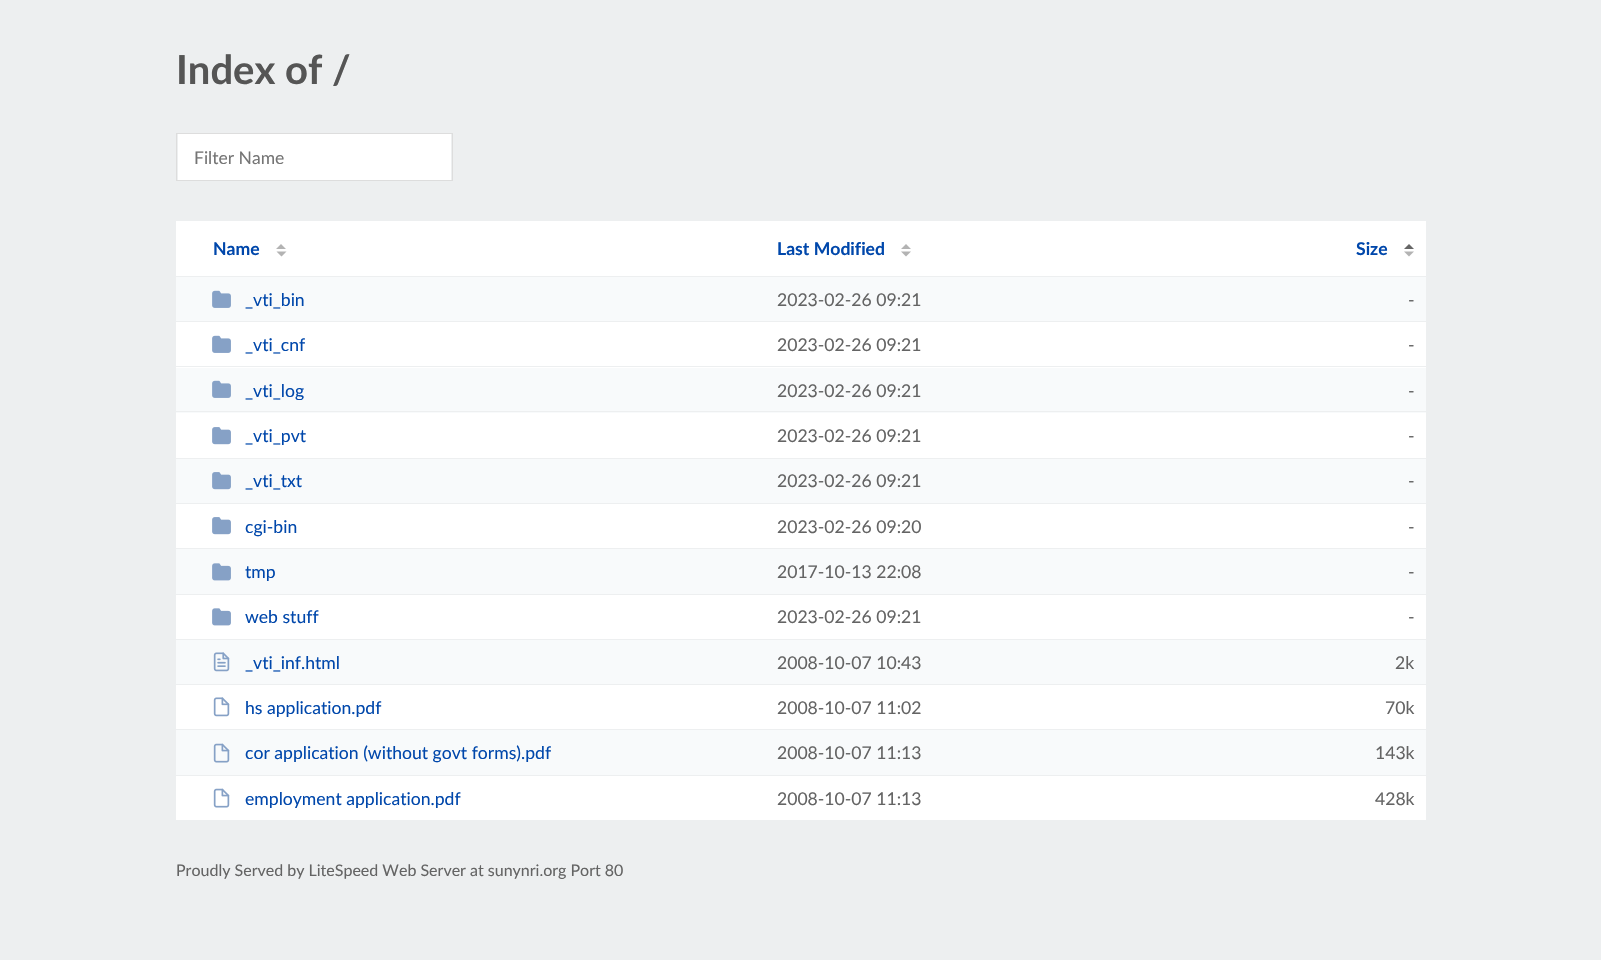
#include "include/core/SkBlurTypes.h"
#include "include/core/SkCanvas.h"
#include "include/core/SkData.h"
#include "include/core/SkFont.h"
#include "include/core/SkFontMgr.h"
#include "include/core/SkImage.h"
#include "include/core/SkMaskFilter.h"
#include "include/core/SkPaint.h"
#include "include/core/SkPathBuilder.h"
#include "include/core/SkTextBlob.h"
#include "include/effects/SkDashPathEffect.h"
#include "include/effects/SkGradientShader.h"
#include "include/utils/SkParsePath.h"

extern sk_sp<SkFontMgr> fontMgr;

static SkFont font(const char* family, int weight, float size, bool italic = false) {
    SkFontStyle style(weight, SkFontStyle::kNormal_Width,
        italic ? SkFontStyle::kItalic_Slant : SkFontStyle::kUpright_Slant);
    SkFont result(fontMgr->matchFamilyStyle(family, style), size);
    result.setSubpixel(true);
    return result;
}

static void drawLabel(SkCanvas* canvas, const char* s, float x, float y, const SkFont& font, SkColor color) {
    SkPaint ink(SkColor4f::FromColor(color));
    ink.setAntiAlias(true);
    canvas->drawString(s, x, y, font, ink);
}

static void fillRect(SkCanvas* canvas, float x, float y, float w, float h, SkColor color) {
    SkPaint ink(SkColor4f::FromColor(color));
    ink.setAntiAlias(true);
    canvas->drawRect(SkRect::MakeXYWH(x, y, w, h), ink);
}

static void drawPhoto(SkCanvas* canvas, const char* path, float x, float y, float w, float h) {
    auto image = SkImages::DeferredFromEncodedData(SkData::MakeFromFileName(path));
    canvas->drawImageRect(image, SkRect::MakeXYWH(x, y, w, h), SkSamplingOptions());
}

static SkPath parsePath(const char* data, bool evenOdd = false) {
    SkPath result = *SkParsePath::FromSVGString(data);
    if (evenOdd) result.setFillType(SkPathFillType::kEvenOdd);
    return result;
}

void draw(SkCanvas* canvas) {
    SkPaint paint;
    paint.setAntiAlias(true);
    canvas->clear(0xFFEDEFF0);
    SkFont font1 = font("Lato", 700, 40);
    drawLabel(canvas, "Index of /", 176, 84, font1, 0xFF555555);
    fillRect(canvas, 178, 134, 273, 46, 0xFFFFFFFF);
    paint.setStroke(true);
    paint.setStrokeWidth(1);
    paint.setColor(0xFFDDDDDD);
    canvas->drawRect(SkRect::MakeXYWH(176.5f, 133.5f, 276, 47), paint);
    SkFont font2 = font("Lato", 400, 17.5f);
    drawLabel(canvas, "Filter Name", 194, 164, font2, 0xFF757575);
    fillRect(canvas, 176, 221, 1250, 599, 0xFFFFFFFF);
    SkFont font3 = font("Lato", 700, 17.6f);
    drawLabel(canvas, "Name", 213, 255, font3, 0xFF0047AB);
    paint.setStroke(false);
    paint.setColor(0xFFB3B3B3);
    canvas->drawPath(parsePath("M286 249H276L281 244ZM276.5 251.5H286.5L281.5 256.5Z"), paint);
    drawLabel(canvas, "Last Modified", 777, 255, font3, 0xFF0047AB);
    canvas->drawPath(parsePath("M911 249H901L906 244ZM901 251.5H911L906 256.5Z"), paint);
    drawLabel(canvas, "Size", 1356, 255, font3, 0xFF0047AB);
    paint.setColor(0xFF666666);
    canvas->drawPath(parsePath("M1414 249H1404L1409 244Z"), paint);
    paint.setColor(0xFFB3B3B3);
    canvas->drawPath(parsePath("M1404 251.5H1414L1409 256.5Z"), paint);
    fillRect(canvas, 176, 277, 1250, 44, 0xFFF8FAFB);
    fillRect(canvas, 176, 276, 1250, 1, 0xFFEDEFF0);
    fillRect(canvas, 176, 321, 1250, 1, 0xFFEDEFF0);
    drawPhoto(canvas, "assets/img1.png", 212, 290, 19, 18);
    SkFont font4 = font("Lato", 400, 17.6f);
    drawLabel(canvas, "_vti_bin", 245, 306, font4, 0xFF0047AB);
    drawLabel(canvas, "2023-02-26 09:21", 777, 306, font4, 0xFF646464);
    drawLabel(canvas, "-", 1408, 306, font4, 0xFF646464);
    drawPhoto(canvas, "assets/img2.png", 212, 335, 19, 18);
    drawLabel(canvas, "_vti_cnf", 245, 351, font4, 0xFF0047AB);
    drawLabel(canvas, "2023-02-26 09:21", 777, 351, font4, 0xFF646464);
    drawLabel(canvas, "-", 1408, 351, font4, 0xFF646464);
    fillRect(canvas, 176, 368, 1250, 45, 0xFFF8FAFB);
    fillRect(canvas, 176, 366, 1250, 1, 0xFFEDEFF0);
    fillRect(canvas, 176, 411, 1250, 1, 0xFFEDEFF0);
    drawPhoto(canvas, "assets/img1.png", 212, 380, 19, 18);
    canvas->save();
    canvas->clipRect(SkRect::MakeXYWH(211, 379, 543, 21));
    drawLabel(canvas, "_vti_log", 245, 397, font4, 0xFF0047AB);
    canvas->restore();
    drawLabel(canvas, "2023-02-26 09:21", 777, 397, font4, 0xFF646464);
    drawLabel(canvas, "-", 1408, 397, font4, 0xFF646464);
    drawPhoto(canvas, "assets/img3.png", 212, 427, 19, 18);
    drawLabel(canvas, "_vti_pvt", 245, 442, font4, 0xFF0047AB);
    drawLabel(canvas, "2023-02-26 09:21", 777, 442, font4, 0xFF646464);
    drawLabel(canvas, "-", 1408, 442, font4, 0xFF646464);
    fillRect(canvas, 176, 459, 1250, 44, 0xFFF8FAFB);
    fillRect(canvas, 176, 458, 1250, 1, 0xFFEDEFF0);
    fillRect(canvas, 176, 503, 1250, 1, 0xFFEDEFF0);
    drawPhoto(canvas, "assets/img4.png", 212, 472, 19, 18);
    drawLabel(canvas, "_vti_txt", 245, 487, font4, 0xFF0047AB);
    drawLabel(canvas, "2023-02-26 09:21", 777, 487, font4, 0xFF646464);
    drawLabel(canvas, "-", 1408, 487, font4, 0xFF646464);
    drawPhoto(canvas, "assets/img3.png", 212, 517, 19, 18);
    drawLabel(canvas, "cgi-bin", 245, 533, font4, 0xFF0047AB);
    drawLabel(canvas, "2023-02-26 09:20", 777, 533, font4, 0xFF646464);
    drawLabel(canvas, "-", 1408, 533, font4, 0xFF646464);
    fillRect(canvas, 176, 549, 1250, 45, 0xFFF8FAFB);
    fillRect(canvas, 176, 548, 1250, 1, 0xFFEDEFF0);
    fillRect(canvas, 176, 594, 1250, 1, 0xFFEDEFF0);
    drawPhoto(canvas, "assets/img5.png", 212, 563, 19, 18);
    drawLabel(canvas, "tmp", 245, 578, font4, 0xFF0047AB);
    drawLabel(canvas, "2017-10-13 22:08", 777, 578, font4, 0xFF646464);
    drawLabel(canvas, "-", 1408, 578, font4, 0xFF646464);
    drawPhoto(canvas, "assets/img6.png", 212, 608, 19, 18);
    drawLabel(canvas, "web stuff", 245, 623, font4, 0xFF0047AB);
    drawLabel(canvas, "2023-02-26 09:21", 777, 623, font4, 0xFF646464);
    drawLabel(canvas, "-", 1408, 623, font4, 0xFF646464);
    fillRect(canvas, 176, 640, 1250, 44, 0xFFF8FAFB);
    fillRect(canvas, 176, 639, 1250, 1, 0xFFEDEFF0);
    fillRect(canvas, 176, 684, 1250, 1, 0xFFEDEFF0);
    drawPhoto(canvas, "assets/img7.png", 213, 652, 17, 20);
    drawLabel(canvas, "_vti_inf.html", 245, 669, font4, 0xFF0047AB);
    drawLabel(canvas, "2008-10-07 10:43", 777, 669, font4, 0xFF646464);
    drawLabel(canvas, "2k", 1395, 669, font4, 0xFF646464);
    drawPhoto(canvas, "assets/img8.png", 213, 697, 17, 20);
    drawLabel(canvas, "hs application.pdf", 245, 714, font4, 0xFF0047AB);
    drawLabel(canvas, "2008-10-07 11:02", 777, 714, font4, 0xFF646464);
    drawLabel(canvas, "70k", 1385, 714, font4, 0xFF646464);
    fillRect(canvas, 176, 730, 1250, 45, 0xFFF8FAFB);
    fillRect(canvas, 176, 729, 1250, 1, 0xFFEDEFF0);
    fillRect(canvas, 176, 775, 1250, 1, 0xFFEDEFF0);
    drawPhoto(canvas, "assets/img9.png", 213, 743, 17, 20);
    drawLabel(canvas, "cor application (without govt forms).pdf", 245, 759, font4, 0xFF0047AB);
    drawLabel(canvas, "2008-10-07 11:13", 777, 759, font4, 0xFF646464);
    drawLabel(canvas, "143k", 1375, 759, font4, 0xFF646464);
    drawPhoto(canvas, "assets/img10.png", 213, 788, 17, 20);
    drawLabel(canvas, "employment application.pdf", 245, 805, font4, 0xFF0047AB);
    drawLabel(canvas, "2008-10-07 11:13", 777, 805, font4, 0xFF646464);
    drawLabel(canvas, "428k", 1375, 805, font4, 0xFF646464);
    SkFont font5 = font("Lato", 400, 16);
    drawLabel(canvas, "Proudly Served by LiteSpeed Web Server at sunynri.org Port 80", 176, 876, font5, 0xFF646464);
}
